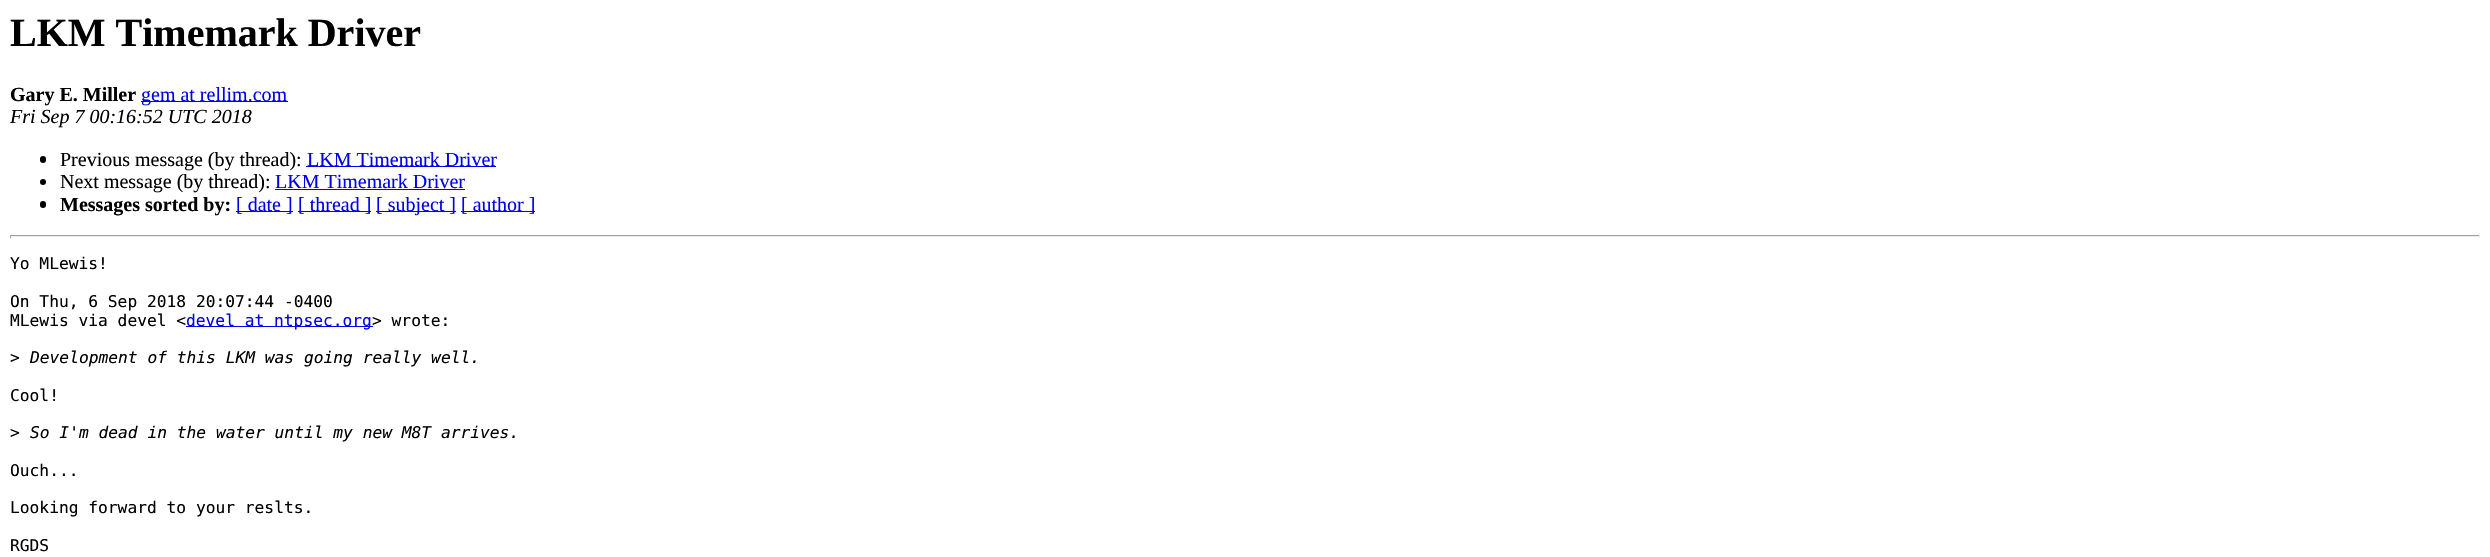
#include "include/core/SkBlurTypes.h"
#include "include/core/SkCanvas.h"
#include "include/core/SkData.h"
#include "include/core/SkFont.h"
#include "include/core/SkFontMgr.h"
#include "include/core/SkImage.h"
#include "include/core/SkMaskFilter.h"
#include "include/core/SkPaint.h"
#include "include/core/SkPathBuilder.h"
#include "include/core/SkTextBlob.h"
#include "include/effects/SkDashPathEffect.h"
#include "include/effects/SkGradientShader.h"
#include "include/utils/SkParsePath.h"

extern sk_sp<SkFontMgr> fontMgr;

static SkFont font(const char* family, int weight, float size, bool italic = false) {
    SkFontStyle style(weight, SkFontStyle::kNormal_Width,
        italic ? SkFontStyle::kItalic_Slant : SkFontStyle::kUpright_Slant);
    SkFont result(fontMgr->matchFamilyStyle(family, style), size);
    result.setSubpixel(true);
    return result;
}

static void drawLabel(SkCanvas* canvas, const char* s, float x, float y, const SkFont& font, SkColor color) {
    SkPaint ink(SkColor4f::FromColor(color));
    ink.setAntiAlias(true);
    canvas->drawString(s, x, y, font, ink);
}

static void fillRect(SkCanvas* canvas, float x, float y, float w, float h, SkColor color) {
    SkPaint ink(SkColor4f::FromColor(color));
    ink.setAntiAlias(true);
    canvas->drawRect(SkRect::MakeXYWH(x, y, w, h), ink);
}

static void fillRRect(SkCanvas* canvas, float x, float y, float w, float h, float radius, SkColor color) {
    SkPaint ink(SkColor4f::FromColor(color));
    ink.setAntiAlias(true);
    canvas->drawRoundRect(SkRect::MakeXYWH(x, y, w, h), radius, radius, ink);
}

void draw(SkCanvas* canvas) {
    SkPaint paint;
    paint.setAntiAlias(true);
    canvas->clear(0xFFFFFFFF);
    SkFont font1 = font("Liberation Serif", 700, 40);
    drawLabel(canvas, "LKM Timemark Driver", 10, 46, font1, 0xFF000000);
    SkFont font2 = font("Liberation Serif", 700, 20);
    drawLabel(canvas, "Gary E. Miller", 10, 101, font2, 0xFF000000);
    fillRect(canvas, 141, 101, 147, 1, 0xFF0000EE);
    SkFont font3 = font("Liberation Serif", 400, 20);
    drawLabel(canvas, "gem at rellim.com", 141, 101, font3, 0xFF0000EE);
    SkFont font4 = font("Liberation Serif", 400, 20, true);
    drawLabel(canvas, "Fri Sep 7 00:16:52 UTC 2018", 10, 123, font4, 0xFF000000);
    fillRRect(canvas, 40, 156, 6, 7, 3, 0xFF000000);
    drawLabel(canvas, "Previous message (by thread):", 60, 166, font3, 0xFF000000);
    fillRect(canvas, 306, 166, 190, 1, 0xFF0000EE);
    drawLabel(canvas, "LKM Timemark Driver", 307, 166, font3, 0xFF0000EE);
    paint.setColor(0xFF000000);
    canvas->drawCircle(43, 182, 3, paint);
    drawLabel(canvas, "Next message (by thread):", 60, 188, font3, 0xFF000000);
    drawLabel(canvas, "LKM Timemark Driver", 275, 188, font3, 0xFF0000EE);
    fillRect(canvas, 275, 189, 190, 1, 0xFF0000EE);
    fillRRect(canvas, 40, 201, 6, 7, 3, 0xFF000000);
    drawLabel(canvas, "Messages sorted by:", 60, 211, font2, 0xFF000000);
    fillRect(canvas, 236, 211, 57, 1, 0xFF0000EE);
    drawLabel(canvas, "[ date ]", 236, 211, font3, 0xFF0000EE);
    fillRect(canvas, 298, 211, 73, 1, 0xFF0000EE);
    drawLabel(canvas, "[ thread ]", 298, 211, font3, 0xFF0000EE);
    fillRect(canvas, 376, 211, 80, 1, 0xFF0000EE);
    drawLabel(canvas, "[ subject ]", 376, 211, font3, 0xFF0000EE);
    fillRect(canvas, 461, 211, 74, 1, 0xFF0000EE);
    drawLabel(canvas, "[ author ]", 461, 211, font3, 0xFF0000EE);
    fillRect(canvas, 10, 235, 2470, 1, 0xFF9F9F9F);
    fillRect(canvas, 2479, 235, 1, 3, 0xFFEEEEEE);
    fillRect(canvas, 10, 236, 2470, 1, 0xFFEEEEEE);
    fillRect(canvas, 10, 235, 1, 3, 0xFF9F9F9F);
    SkFont font5 = font("DejaVu Sans Mono", 400, 16.25f);
    drawLabel(canvas, "Yo MLewis!", 10, 269, font5, 0xFF000000);
    drawLabel(canvas, "On Thu, 6 Sep 2018 20:07:44 -0400", 10, 307, font5, 0xFF000000);
    drawLabel(canvas, "MLewis via devel <", 10, 326, font5, 0xFF000000);
    fillRect(canvas, 186, 326, 187, 1, 0xFF0000EE);
    drawLabel(canvas, "devel at ntpsec.org", 186, 326, font5, 0xFF0000EE);
    drawLabel(canvas, "> wrote:", 372, 326, font5, 0xFF000000);
    drawLabel(canvas, ">", 10, 363, font5, 0xFF000000);
    SkFont font6 = font("DejaVu Sans Mono", 400, 16.25f, true);
    drawLabel(canvas, "Development of this LKM was going really well.", 30, 363, font6, 0xFF000000);
    drawLabel(canvas, "Cool!", 10, 401, font5, 0xFF000000);
    drawLabel(canvas, ">", 10, 438, font5, 0xFF000000);
    drawLabel(canvas, "So I'm dead in the water until my new M8T arrives.", 30, 438, font6, 0xFF000000);
    drawLabel(canvas, "Ouch...", 10, 476, font5, 0xFF000000);
    drawLabel(canvas, "Looking forward to your reslts.", 10, 513, font5, 0xFF000000);
    drawLabel(canvas, "RGDS", 10, 551, font5, 0xFF000000);
}
